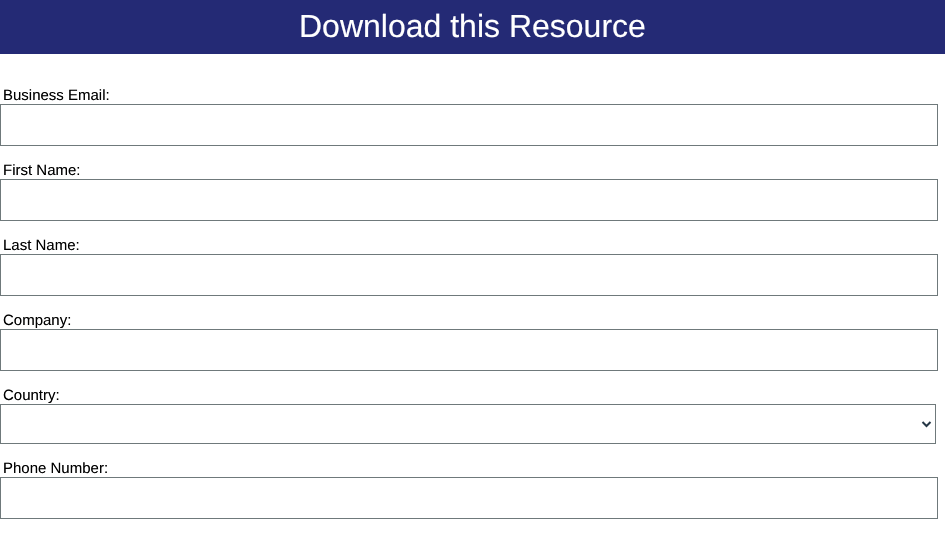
#include "include/core/SkBlurTypes.h"
#include "include/core/SkCanvas.h"
#include "include/core/SkData.h"
#include "include/core/SkFont.h"
#include "include/core/SkFontMgr.h"
#include "include/core/SkImage.h"
#include "include/core/SkMaskFilter.h"
#include "include/core/SkPaint.h"
#include "include/core/SkPathBuilder.h"
#include "include/core/SkTextBlob.h"
#include "include/effects/SkDashPathEffect.h"
#include "include/effects/SkGradientShader.h"
#include "include/utils/SkParsePath.h"

extern sk_sp<SkFontMgr> fontMgr;

static SkFont font(const char* family, int weight, float size, bool italic = false) {
    SkFontStyle style(weight, SkFontStyle::kNormal_Width,
        italic ? SkFontStyle::kItalic_Slant : SkFontStyle::kUpright_Slant);
    SkFont result(fontMgr->matchFamilyStyle(family, style), size);
    result.setSubpixel(true);
    return result;
}

static void drawLabel(SkCanvas* canvas, const char* s, float x, float y, const SkFont& font, SkColor color) {
    SkPaint ink(SkColor4f::FromColor(color));
    ink.setAntiAlias(true);
    canvas->drawString(s, x, y, font, ink);
}

static void fillRect(SkCanvas* canvas, float x, float y, float w, float h, SkColor color) {
    SkPaint ink(SkColor4f::FromColor(color));
    ink.setAntiAlias(true);
    canvas->drawRect(SkRect::MakeXYWH(x, y, w, h), ink);
}

static SkPath parsePath(const char* data, bool evenOdd = false) {
    SkPath result = *SkParsePath::FromSVGString(data);
    if (evenOdd) result.setFillType(SkPathFillType::kEvenOdd);
    return result;
}

void draw(SkCanvas* canvas) {
    SkPaint paint;
    paint.setAntiAlias(true);
    canvas->clear(0xFFFFFFFF);
    fillRect(canvas, 0, 0, 945, 54, 0xFF242A75);
    SkFont font1 = font("Liberation Sans", 400, 32);
    drawLabel(canvas, "Download this Resource", 299, 37, font1, 0xFFFFFFFF);
    SkFont font2 = font("Liberation Sans", 400, 15);
    drawLabel(canvas, "Business Email:", 3, 100, font2, 0xFF000000);
    paint.setStroke(true);
    paint.setStrokeWidth(1);
    paint.setColor(0xFF6F797B);
    canvas->drawRect(SkRect::MakeXYWH(0.5f, 104.5f, 937, 41), paint);
    drawLabel(canvas, "First Name:", 3, 175, font2, 0xFF000000);
    canvas->drawRect(SkRect::MakeXYWH(0.5f, 179.5f, 937, 41), paint);
    drawLabel(canvas, "Last Name:", 3, 250, font2, 0xFF000000);
    canvas->drawRect(SkRect::MakeXYWH(0.5f, 254.5f, 937, 41), paint);
    drawLabel(canvas, "Company:", 3, 325, font2, 0xFF000000);
    canvas->drawRect(SkRect::MakeXYWH(0.5f, 329.5f, 937, 41), paint);
    drawLabel(canvas, "Country:", 3, 400, font2, 0xFF000000);
    canvas->drawRect(SkRect::MakeXYWH(0.5f, 404.5f, 935, 39), paint);
    paint.setStrokeWidth(2);
    paint.setColor(0xFF253746);
    canvas->drawPath(parsePath("M922.5 422L926.5 426L930.5 422"), paint);
    drawLabel(canvas, "Phone Number:", 3, 473, font2, 0xFF000000);
    paint.setStrokeWidth(1);
    paint.setColor(0xFF6F797B);
    canvas->drawRect(SkRect::MakeXYWH(0.5f, 477.5f, 937, 41), paint);
}
